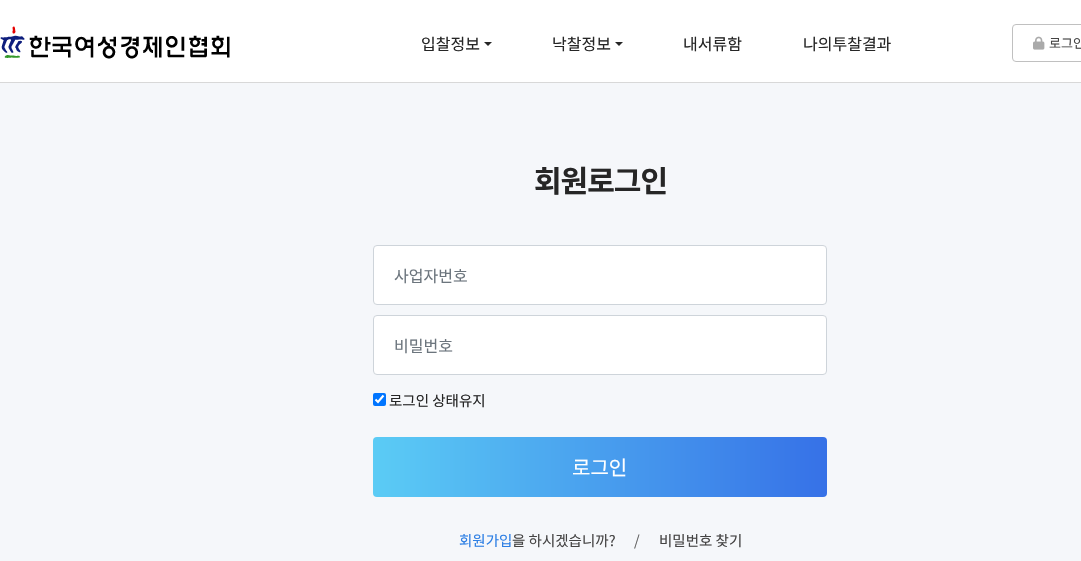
#include "include/core/SkBlurTypes.h"
#include "include/core/SkCanvas.h"
#include "include/core/SkData.h"
#include "include/core/SkFont.h"
#include "include/core/SkFontMgr.h"
#include "include/core/SkImage.h"
#include "include/core/SkMaskFilter.h"
#include "include/core/SkPaint.h"
#include "include/core/SkPathBuilder.h"
#include "include/core/SkTextBlob.h"
#include "include/effects/SkDashPathEffect.h"
#include "include/effects/SkGradientShader.h"
#include "include/utils/SkParsePath.h"

extern sk_sp<SkFontMgr> fontMgr;

static SkFont font(const char* family, int weight, float size, bool italic = false) {
    SkFontStyle style(weight, SkFontStyle::kNormal_Width,
        italic ? SkFontStyle::kItalic_Slant : SkFontStyle::kUpright_Slant);
    SkFont result(fontMgr->matchFamilyStyle(family, style), size);
    result.setSubpixel(true);
    return result;
}

static void drawLabel(SkCanvas* canvas, const char* s, float x, float y, const SkFont& font, SkColor color) {
    SkPaint ink(SkColor4f::FromColor(color));
    ink.setAntiAlias(true);
    canvas->drawString(s, x, y, font, ink);
}

static void drawTracked(SkCanvas* canvas, const char* s, float x, float y, const SkFont& font, const SkPaint& ink, float letter, float word) {
    std::vector<SkGlyphID> glyphs(font.countText(s, strlen(s), SkTextEncoding::kUTF8));
    std::vector<float> xs(glyphs.size());
    font.textToGlyphs(s, strlen(s), SkTextEncoding::kUTF8, glyphs);
    font.getXPos(glyphs, xs, x);
    float extra = 0;
    for (size_t i = 0; i < glyphs.size(); i++) {
        xs[i] += extra;
        extra += letter + word * (glyphs[i] == font.unicharToGlyph(' '));
    }
    canvas->drawTextBlob(SkTextBlob::MakeFromPosHGlyphs(glyphs, xs, y, font), 0, 0, ink);
}

static void fillRect(SkCanvas* canvas, float x, float y, float w, float h, SkColor color) {
    SkPaint ink(SkColor4f::FromColor(color));
    ink.setAntiAlias(true);
    canvas->drawRect(SkRect::MakeXYWH(x, y, w, h), ink);
}

static void fillRRect(SkCanvas* canvas, float x, float y, float w, float h, float radius, SkColor color) {
    SkPaint ink(SkColor4f::FromColor(color));
    ink.setAntiAlias(true);
    canvas->drawRoundRect(SkRect::MakeXYWH(x, y, w, h), radius, radius, ink);
}

static void drawPhoto(SkCanvas* canvas, const char* path, float x, float y, float w, float h) {
    auto image = SkImages::DeferredFromEncodedData(SkData::MakeFromFileName(path));
    canvas->drawImageRect(image, SkRect::MakeXYWH(x, y, w, h), SkSamplingOptions());
}

static SkPath parsePath(const char* data, bool evenOdd = false) {
    SkPath result = *SkParsePath::FromSVGString(data);
    if (evenOdd) result.setFillType(SkPathFillType::kEvenOdd);
    return result;
}

void draw(SkCanvas* canvas) {
    SkPaint paint;
    paint.setAntiAlias(true);
    canvas->clear(0xFFFFFFFF);
    drawPhoto(canvas, "assets/img1.png", 0, 26, 230, 33);
    SkFont font1 = font("Noto Sans KR", 400, 16);
    drawLabel(canvas, "입찰정보", 421, 50, font1, 0xFF262626);
    paint.setColor(0xFF262626);
    canvas->drawPath(parsePath("M484 42H492L488 46Z"), paint);
    drawLabel(canvas, "낙찰정보", 552, 50, font1, 0xFF262626);
    canvas->drawPath(parsePath("M615 42H623L619 46Z"), paint);
    drawLabel(canvas, "내서류함", 683, 50, font1, 0xFF262626);
    drawLabel(canvas, "나의투찰결과", 803, 50, font1, 0xFF262626);
    paint.setStroke(true);
    paint.setStrokeWidth(1);
    paint.setColor(0xFFC0C0C0);
    canvas->drawRoundRect(SkRect::MakeXYWH(1012.5f, 24.5f, 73, 37), 3.5f, 3.5f, paint);
    drawPhoto(canvas, "assets/img2.png", 1033, 36, 12, 14);
    SkFont font2 = font("Noto Sans KR", 400, 13);
    drawLabel(canvas, "로그인", 1049, 48, font2, 0xFF454444);
    fillRect(canvas, 0, 83, 1081, 478, 0xFFF5F7FA);
    fillRect(canvas, 0, 82, 1081, 1, 0xFFD8D8D8);
    SkFont font3 = font("Noto Sans KR", 700, 30);
    paint.setStroke(false);
    paint.setColor(0xFF262626);
    drawTracked(canvas, "회원로그인", 534, 192, font3, paint, -1, 0);
    paint.setColor(0xFFFFFFFF);
    canvas->drawRoundRect(SkRect::MakeXYWH(373.5f, 245.5f, 453, 59), 3.5f, 3.5f, paint);
    paint.setStroke(true);
    paint.setColor(0xFFCED4DA);
    canvas->drawRoundRect(SkRect::MakeXYWH(373.5f, 245.5f, 453, 59), 3.5f, 3.5f, paint);
    drawLabel(canvas, "사업자번호", 394, 282, font1, 0xFF6C757D);
    paint.setStroke(false);
    paint.setColor(0xFFFFFFFF);
    canvas->drawRoundRect(SkRect::MakeXYWH(373.5f, 315.5f, 453, 59), 3.5f, 3.5f, paint);
    paint.setStroke(true);
    paint.setColor(0xFFCED4DA);
    canvas->drawRoundRect(SkRect::MakeXYWH(373.5f, 315.5f, 453, 59), 3.5f, 3.5f, paint);
    drawLabel(canvas, "비밀번호", 394, 352, font1, 0xFF6C757D);
    fillRRect(canvas, 373, 393, 13, 13, 2, 0xFF0075FF);
    paint.setStrokeWidth(2.1f);
    paint.setColor(0xFFFFFFFF);
    canvas->drawPath(parsePath("M375.5 399.5L378 402L383.5 395.5"), paint);
    SkFont font4 = font("Noto Sans KR", 400, 14.5f);
    drawLabel(canvas, "로그인 상태유지", 389, 406, font4, 0xFF262626);
    paint.setStroke(false);
    {
        const SkColor colors[] = {0xFF5BCCF5, 0xFF3671E7};
        const float stops[] = {0, 1};
        const SkPoint ends[] = {{373, 467}, {827, 467}};
        paint.setShader(SkGradientShader::MakeLinear(ends, colors, stops, 2, SkTileMode::kClamp));
        paint.setAlpha(255);
    }
    canvas->drawRoundRect(SkRect::MakeXYWH(373, 437, 454, 60), 4, 4, paint);
    SkFont font5 = font("Noto Sans KR", 400, 20);
    drawLabel(canvas, "로그인", 572, 475, font5, 0xFFFFFFFF);
    drawLabel(canvas, "회원가입", 459, 546, font4, 0xFF2D7FE4);
    drawLabel(canvas, "을 하시겠습니까?", 512, 546, font4, 0xFF454444);
    drawLabel(canvas, "/", 634, 546, font4, 0xFF626262);
    drawLabel(canvas, "비밀번호 찾기", 659, 546, font4, 0xFF454444);
}
